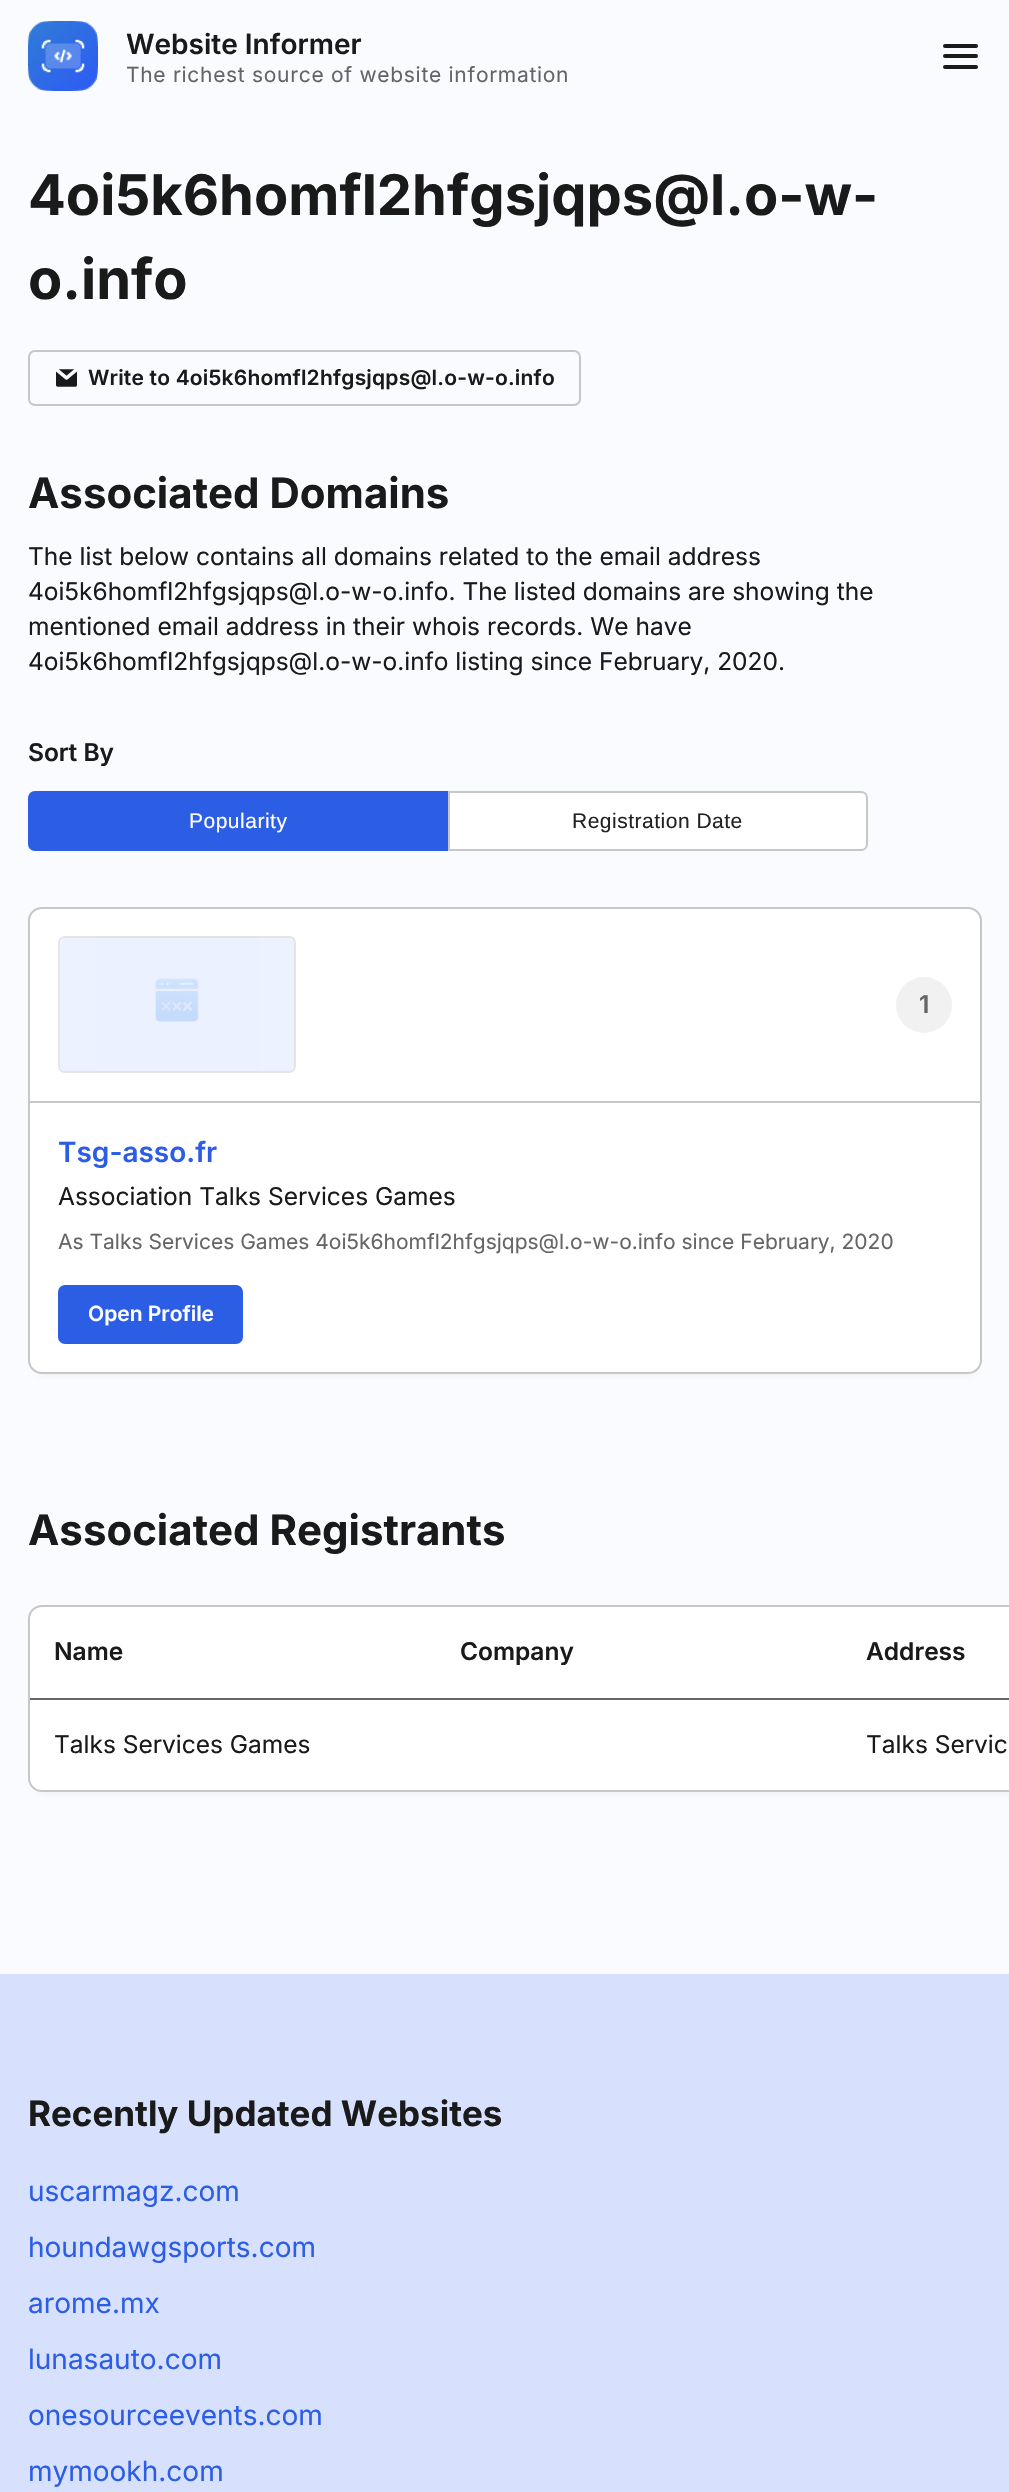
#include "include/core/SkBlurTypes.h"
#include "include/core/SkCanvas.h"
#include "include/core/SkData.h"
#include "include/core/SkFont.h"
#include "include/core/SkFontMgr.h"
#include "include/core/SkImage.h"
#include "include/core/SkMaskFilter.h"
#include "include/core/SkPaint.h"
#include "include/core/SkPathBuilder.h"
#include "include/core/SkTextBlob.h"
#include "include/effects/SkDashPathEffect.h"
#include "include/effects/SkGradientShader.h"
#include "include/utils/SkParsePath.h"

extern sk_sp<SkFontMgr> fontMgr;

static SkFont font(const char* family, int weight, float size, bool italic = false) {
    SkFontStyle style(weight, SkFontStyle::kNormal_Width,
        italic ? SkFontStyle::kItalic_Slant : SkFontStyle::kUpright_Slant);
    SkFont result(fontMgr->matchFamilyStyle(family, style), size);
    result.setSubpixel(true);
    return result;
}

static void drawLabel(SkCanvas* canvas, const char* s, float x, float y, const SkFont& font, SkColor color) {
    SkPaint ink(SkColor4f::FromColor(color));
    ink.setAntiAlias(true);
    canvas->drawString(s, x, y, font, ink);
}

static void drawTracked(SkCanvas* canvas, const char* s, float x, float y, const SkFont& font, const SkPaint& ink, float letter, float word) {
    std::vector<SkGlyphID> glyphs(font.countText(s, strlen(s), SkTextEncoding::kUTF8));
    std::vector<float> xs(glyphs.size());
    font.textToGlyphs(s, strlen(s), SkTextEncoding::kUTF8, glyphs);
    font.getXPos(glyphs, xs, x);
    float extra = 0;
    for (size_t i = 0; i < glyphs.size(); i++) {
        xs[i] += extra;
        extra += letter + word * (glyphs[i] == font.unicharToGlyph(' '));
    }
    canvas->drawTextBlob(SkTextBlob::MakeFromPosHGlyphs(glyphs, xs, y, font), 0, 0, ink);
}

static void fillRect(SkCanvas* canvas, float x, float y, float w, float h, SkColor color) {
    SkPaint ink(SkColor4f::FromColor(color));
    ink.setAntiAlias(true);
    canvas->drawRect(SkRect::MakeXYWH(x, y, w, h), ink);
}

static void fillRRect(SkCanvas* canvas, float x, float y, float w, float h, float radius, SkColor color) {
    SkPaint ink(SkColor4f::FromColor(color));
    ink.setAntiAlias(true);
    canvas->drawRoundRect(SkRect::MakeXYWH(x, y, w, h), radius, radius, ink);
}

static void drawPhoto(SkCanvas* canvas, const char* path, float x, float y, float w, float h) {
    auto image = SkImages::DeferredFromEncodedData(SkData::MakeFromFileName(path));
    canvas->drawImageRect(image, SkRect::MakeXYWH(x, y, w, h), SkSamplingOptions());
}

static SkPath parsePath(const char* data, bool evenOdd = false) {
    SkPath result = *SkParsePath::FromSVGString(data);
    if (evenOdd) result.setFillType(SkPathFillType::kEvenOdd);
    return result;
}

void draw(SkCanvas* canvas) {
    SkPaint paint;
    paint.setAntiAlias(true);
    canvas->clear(0xFFF9FBFF);
    drawPhoto(canvas, "assets/img1.png", 28, 21, 70, 70);
    SkFont font1 = font("Inter", 600, 28);
    drawLabel(canvas, "Website Informer", 126, 54, font1, 0xFF1A1A1A);
    SkFont font2 = font("Inter", 400, 21);
    paint.setColor(0xFF656565);
    drawTracked(canvas, "The richest source of website information", 126, 82, font2, paint, 0.7f, 0);
    fillRRect(canvas, 943, 44, 35, 4, 2, 0xFF1A1A1A);
    fillRRect(canvas, 943, 54, 35, 4, 2, 0xFF1A1A1A);
    fillRRect(canvas, 943, 65, 35, 4, 2, 0xFF1A1A1A);
    SkFont font3 = font("Inter", 700, 56);
    drawLabel(canvas, "4oi5k6homfl2hfgsjqps@l.o-w-", 28, 215, font3, 0xFF1A1A1A);
    drawLabel(canvas, "o.info", 28, 299, font3, 0xFF1A1A1A);
    paint.setStroke(true);
    paint.setStrokeWidth(2);
    paint.setColor(0xFFC7C7C7);
    canvas->drawRoundRect(SkRect::MakeXYWH(29, 351, 551, 54), 6, 6, paint);
    drawPhoto(canvas, "assets/img2.png", 56, 369, 21, 18);
    SkFont font4 = font("Inter", 600, 21);
    paint.setStroke(false);
    paint.setColor(0xFF1A1A1A);
    drawTracked(canvas, "Write to 4oi5k6homfl2hfgsjqps@l.o-w-o.info", 88, 385, font4, paint, 0.2f, 0);
    SkFont font5 = font("Inter", 700, 42);
    drawLabel(canvas, "Associated Domains", 28, 508, font5, 0xFF1A1A1A);
    SkFont font6 = font("Inter", 400, 24.5f);
    drawLabel(canvas, "The list below contains all domains related to the email address", 28, 565, font6, 0xFF1A1A1A);
    drawLabel(canvas, "4oi5k6homfl2hfgsjqps@l.o-w-o.info. The listed domains are showing the", 28, 600, font6, 0xFF1A1A1A);
    drawLabel(canvas, "mentioned email address in their whois records. We have", 28, 635, font6, 0xFF1A1A1A);
    drawLabel(canvas, "4oi5k6homfl2hfgsjqps@l.o-w-o.info listing since February, 2020.", 28, 670, font6, 0xFF1A1A1A);
    SkFont font7 = font("Inter", 600, 24.5f);
    drawLabel(canvas, "Sort By", 28, 761, font7, 0xFF1A1A1A);
    paint.setColor(0xFF2C5DE5);
    canvas->drawPath(parsePath("M35 792H447V850H35C31.5 850 29 847.5 29 844V798C29 794.5 31.5 792 35 792Z"), paint);
    paint.setStroke(true);
    canvas->drawPath(parsePath("M35 792H447V850H35C31.5 850 29 847.5 29 844V798C29 794.5 31.5 792 35 792Z"), paint);
    SkFont font8 = font("Liberation Sans", 400, 21);
    paint.setStroke(false);
    paint.setColor(0xFFFFFFFF);
    drawTracked(canvas, "Popularity", 189, 828, font8, paint, 0.5f, 0);
    canvas->drawPath(parsePath("M449 792H861C864.5 792 867 794.5 867 798V844C867 847.5 864.5 850 861 850H449Z"), paint);
    paint.setStroke(true);
    paint.setColor(0xFFC7C7C7);
    canvas->drawPath(parsePath("M449 792H861C864.5 792 867 794.5 867 798V844C867 847.5 864.5 850 861 850H449Z"), paint);
    paint.setStroke(false);
    paint.setColor(0xFF222222);
    drawTracked(canvas, "Registration Date", 572, 828, font8, paint, 0.5f, 0);
    paint.setColor(0x0F1A1A1A);
    paint.setMaskFilter(SkMaskFilter::MakeBlur(kNormal_SkBlurStyle, 5));
    canvas->drawRoundRect(SkRect::MakeXYWH(35, 921, 940, 453), 7, 7, paint);
    paint.setMaskFilter(nullptr);
    paint.setColor(0xFFFFFFFF);
    canvas->drawRoundRect(SkRect::MakeXYWH(29, 908, 952, 465), 13, 13, paint);
    paint.setStroke(true);
    paint.setColor(0xFFC7C7C7);
    canvas->drawRoundRect(SkRect::MakeXYWH(29, 908, 952, 465), 13, 13, paint);
    paint.setColor(0xFFE4E4E4);
    canvas->drawRoundRect(SkRect::MakeXYWH(59, 937, 236, 135), 6, 6, paint);
    drawPhoto(canvas, "assets/img3.png", 59, 938, 235, 133);
    paint.setStroke(false);
    paint.setColor(0xFFF1F1F1);
    canvas->drawCircle(924, 1005, 28, paint);
    drawLabel(canvas, "1", 919, 1013, font7, 0xFF656565);
    fillRect(canvas, 30, 1101, 950, 2, 0xFFC7C7C7);
    drawLabel(canvas, "Tsg-asso.fr", 58, 1162, font1, 0xFF2C5DE5);
    drawLabel(canvas, "Association Talks Services Games", 58, 1205, font6, 0xFF1A1A1A);
    drawLabel(canvas, "As Talks Services Games 4oi5k6homfl2hfgsjqps@l.o-w-o.info since February, 2020", 58, 1249, font2, 0xFF656565);
    paint.setColor(0xFF2C5DE5);
    canvas->drawRoundRect(SkRect::MakeXYWH(59, 1286, 183, 57), 6, 6, paint);
    paint.setStroke(true);
    canvas->drawRoundRect(SkRect::MakeXYWH(59, 1286, 183, 57), 6, 6, paint);
    drawLabel(canvas, "Open Profile", 88, 1321, font4, 0xFFFFFFFF);
    drawLabel(canvas, "Associated Registrants", 28, 1545, font5, 0xFF1A1A1A);
    paint.setStroke(false);
    paint.setColor(0x0F1A1A1A);
    paint.setMaskFilter(SkMaskFilter::MakeBlur(kNormal_SkBlurStyle, 5));
    canvas->drawRoundRect(SkRect::MakeXYWH(35, 1619, 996, 173), 7, 7, paint);
    paint.setMaskFilter(nullptr);
    paint.setColor(0xFFFFFFFF);
    canvas->drawPath(parsePath("M42 1605H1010V1792H42C34.5 1792 28 1785.5 28 1778V1619C28 1611.5 34.5 1605 42 1605Z"), paint);
    paint.setStroke(true);
    paint.setColor(0xFFC7C7C7);
    canvas->drawRoundRect(SkRect::MakeXYWH(29, 1606, 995, 185), 13, 13, paint);
    fillRect(canvas, 30, 1698, 979, 2, 0xFF656565);
    drawLabel(canvas, "Name", 54, 1660, font7, 0xFF1A1A1A);
    drawLabel(canvas, "Company", 460, 1660, font7, 0xFF1A1A1A);
    drawLabel(canvas, "Address", 866, 1660, font7, 0xFF1A1A1A);
    drawLabel(canvas, "Talks Services Games", 54, 1753, font6, 0xFF1A1A1A);
    drawLabel(canvas, "Talks Servic", 866, 1753, font6, 0xFF1A1A1A);
    fillRect(canvas, 0, 1974, 1009, 518, 0xFFD7E1FE);
    SkFont font9 = font("Inter", 700, 35);
    drawLabel(canvas, "Recently Updated Websites", 28, 2126, font9, 0xFF1A1A1A);
    SkFont font10 = font("Inter", 400, 28);
    drawLabel(canvas, "uscarmagz.com", 28, 2201, font10, 0xFF2C5DE5);
    drawLabel(canvas, "houndawgsports.com", 28, 2257, font10, 0xFF2C5DE5);
    drawLabel(canvas, "arome.mx", 28, 2313, font10, 0xFF2C5DE5);
    drawLabel(canvas, "lunasauto.com", 28, 2369, font10, 0xFF2C5DE5);
    drawLabel(canvas, "onesourceevents.com", 28, 2425, font10, 0xFF2C5DE5);
    drawLabel(canvas, "mymookh.com", 28, 2481, font10, 0xFF2C5DE5);
}
